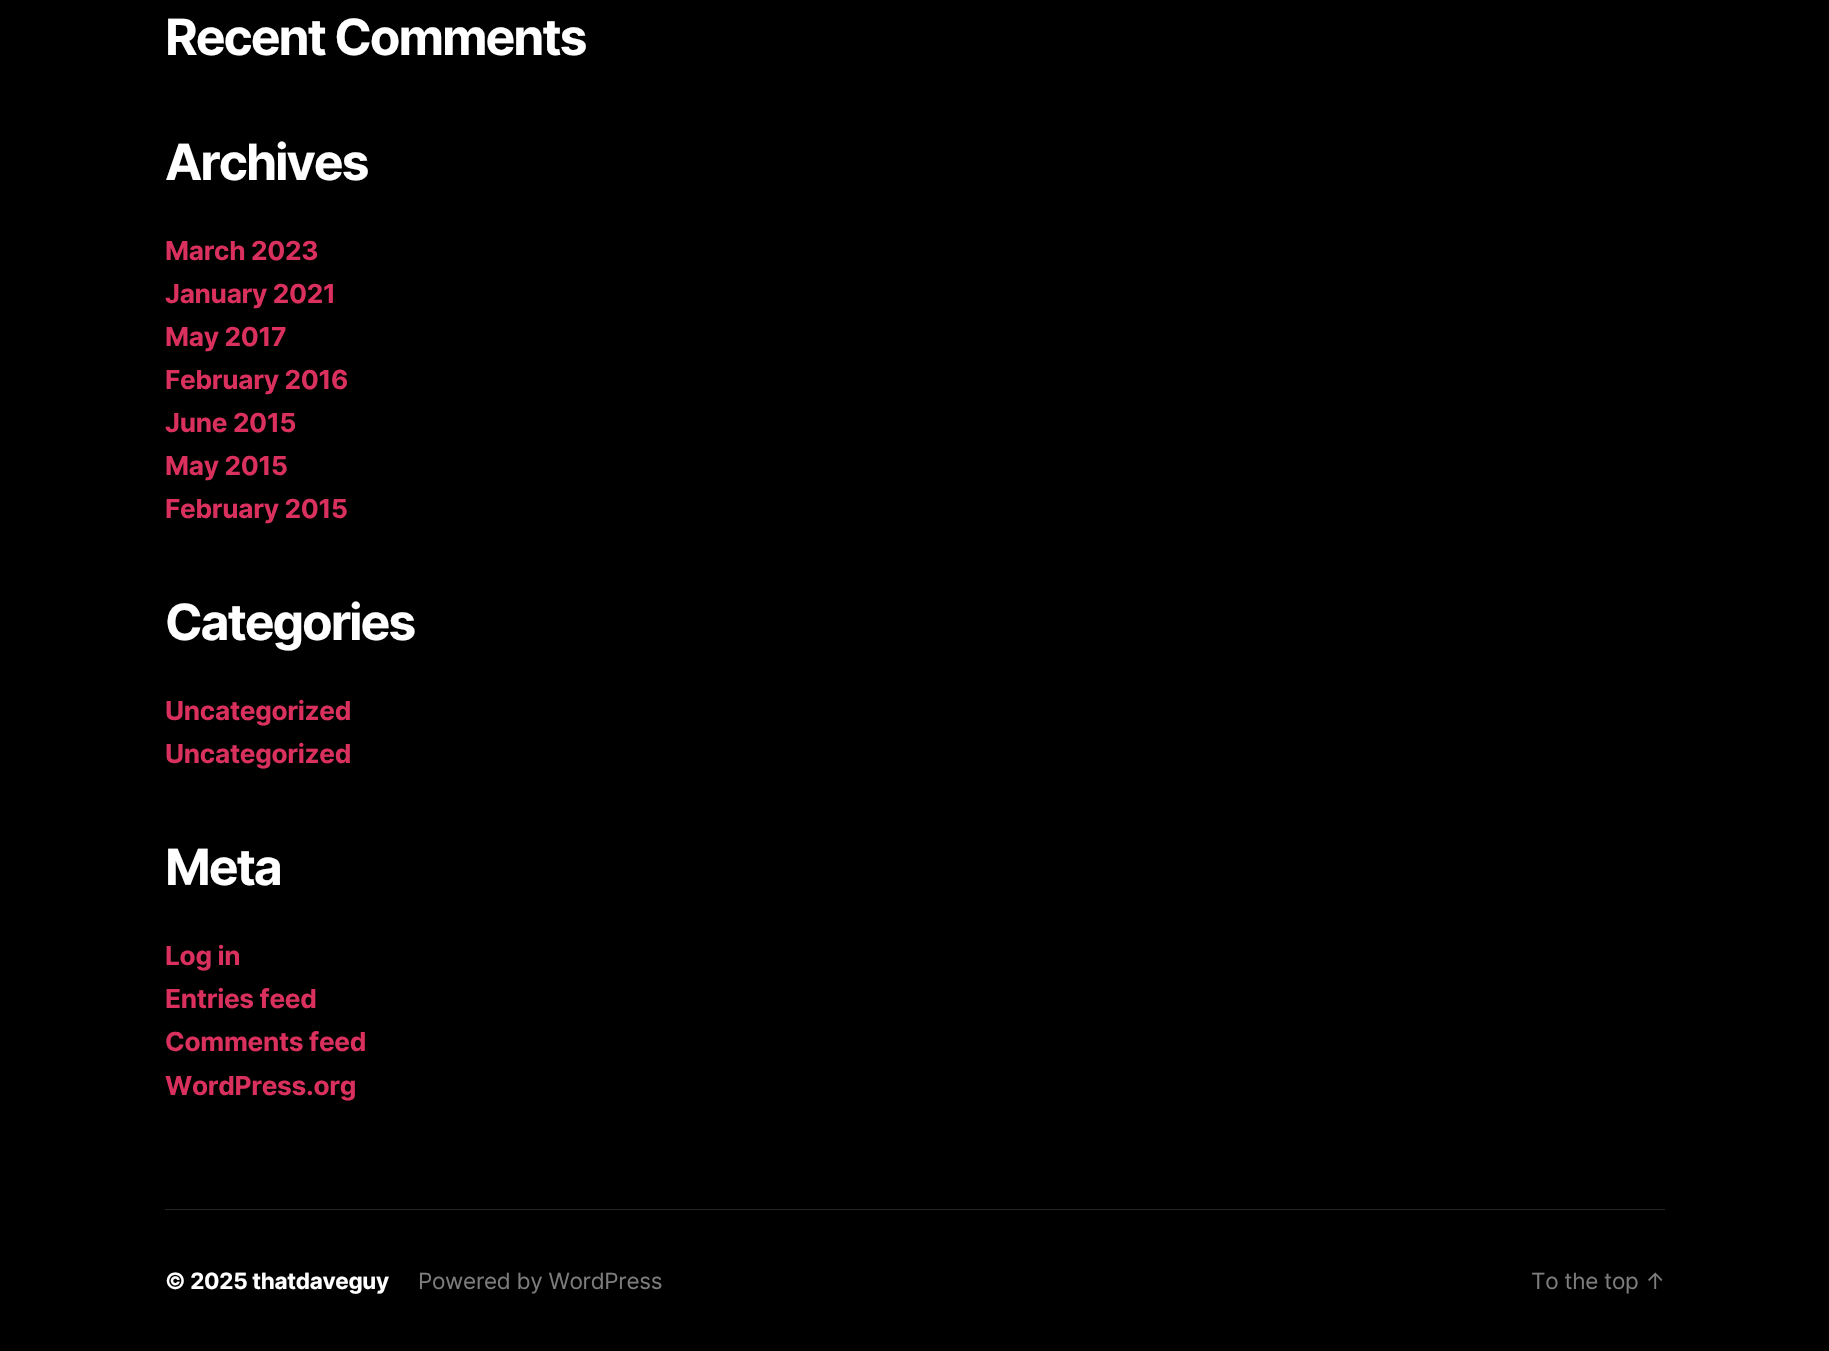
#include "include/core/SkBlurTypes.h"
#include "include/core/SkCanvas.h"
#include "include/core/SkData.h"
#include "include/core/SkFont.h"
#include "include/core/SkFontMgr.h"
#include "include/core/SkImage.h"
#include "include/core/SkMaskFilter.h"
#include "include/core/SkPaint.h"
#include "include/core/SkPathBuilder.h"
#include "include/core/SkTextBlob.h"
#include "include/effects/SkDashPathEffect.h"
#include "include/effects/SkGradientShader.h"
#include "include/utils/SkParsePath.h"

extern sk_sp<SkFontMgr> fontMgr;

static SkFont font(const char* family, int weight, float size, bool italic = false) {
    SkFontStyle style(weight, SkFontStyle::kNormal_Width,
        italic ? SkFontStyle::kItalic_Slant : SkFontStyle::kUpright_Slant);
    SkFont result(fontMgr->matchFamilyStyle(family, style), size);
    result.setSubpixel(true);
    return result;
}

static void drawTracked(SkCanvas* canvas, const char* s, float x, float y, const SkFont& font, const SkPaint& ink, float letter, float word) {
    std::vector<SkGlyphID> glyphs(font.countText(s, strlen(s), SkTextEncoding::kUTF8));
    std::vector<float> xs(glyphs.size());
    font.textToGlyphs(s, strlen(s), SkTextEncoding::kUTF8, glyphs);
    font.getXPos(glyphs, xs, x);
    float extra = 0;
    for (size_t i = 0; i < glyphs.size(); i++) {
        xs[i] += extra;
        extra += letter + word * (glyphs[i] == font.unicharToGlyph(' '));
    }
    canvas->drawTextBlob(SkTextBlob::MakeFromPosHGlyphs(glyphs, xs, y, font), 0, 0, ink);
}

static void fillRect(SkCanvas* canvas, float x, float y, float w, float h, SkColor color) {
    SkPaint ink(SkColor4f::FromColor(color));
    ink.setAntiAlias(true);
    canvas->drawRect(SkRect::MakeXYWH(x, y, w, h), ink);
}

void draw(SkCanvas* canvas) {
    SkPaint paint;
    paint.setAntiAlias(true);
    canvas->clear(0xFF000000);
    fillRect(canvas, 165, 1209, 1500, 1, 0xFF262626);
    SkFont font1 = font("Inter", 700, 50);
    paint.setColor(0xFFFFFFFF);
    drawTracked(canvas, "Recent Comments", 165, 55, font1, paint, -2.1f, 0);
    drawTracked(canvas, "Archives", 165, 180, font1, paint, -2.1f, 0);
    SkFont font2 = font("Inter", 700, 26.25f);
    paint.setColor(0xFFD9305D);
    drawTracked(canvas, "March 2023", 165, 260, font2, paint, -0.3f, 0);
    drawTracked(canvas, "January 2021", 165, 303, font2, paint, -0.3f, 0);
    drawTracked(canvas, "May 2017", 165, 346, font2, paint, -0.3f, 0);
    drawTracked(canvas, "February 2016", 165, 389, font2, paint, -0.3f, 0);
    drawTracked(canvas, "June 2015", 165, 432, font2, paint, -0.3f, 0);
    drawTracked(canvas, "May 2015", 165, 475, font2, paint, -0.3f, 0);
    drawTracked(canvas, "February 2015", 165, 518, font2, paint, -0.3f, 0);
    paint.setColor(0xFFFFFFFF);
    drawTracked(canvas, "Categories", 165, 640, font1, paint, -2.1f, 0);
    paint.setColor(0xFFD9305D);
    drawTracked(canvas, "Uncategorized", 165, 720, font2, paint, -0.3f, 0);
    drawTracked(canvas, "Uncategorized", 165, 763, font2, paint, -0.3f, 0);
    paint.setColor(0xFFFFFFFF);
    drawTracked(canvas, "Meta", 165, 885, font1, paint, -2.1f, 0);
    paint.setColor(0xFFD9305D);
    drawTracked(canvas, "Log in", 165, 965, font2, paint, -0.3f, 0);
    drawTracked(canvas, "Entries feed", 165, 1008, font2, paint, -0.3f, 0);
    drawTracked(canvas, "Comments feed", 165, 1051, font2, paint, -0.3f, 0);
    drawTracked(canvas, "WordPress.org", 165, 1095, font2, paint, -0.3f, 0);
    SkFont font3 = font("Inter", 700, 22.5f);
    paint.setColor(0xFFFFFFFF);
    drawTracked(canvas, "© 2025 thatdaveguy", 165, 1289, font3, paint, -0.3f, 0);
    SkFont font4 = font("Inter", 400, 22.5f);
    paint.setColor(0xFF7C7C7C);
    drawTracked(canvas, "Powered by WordPress", 418, 1289, font4, paint, -0.3f, 0);
    drawTracked(canvas, "To the top ↑", 1531, 1289, font4, paint, -0.3f, 0);
}
